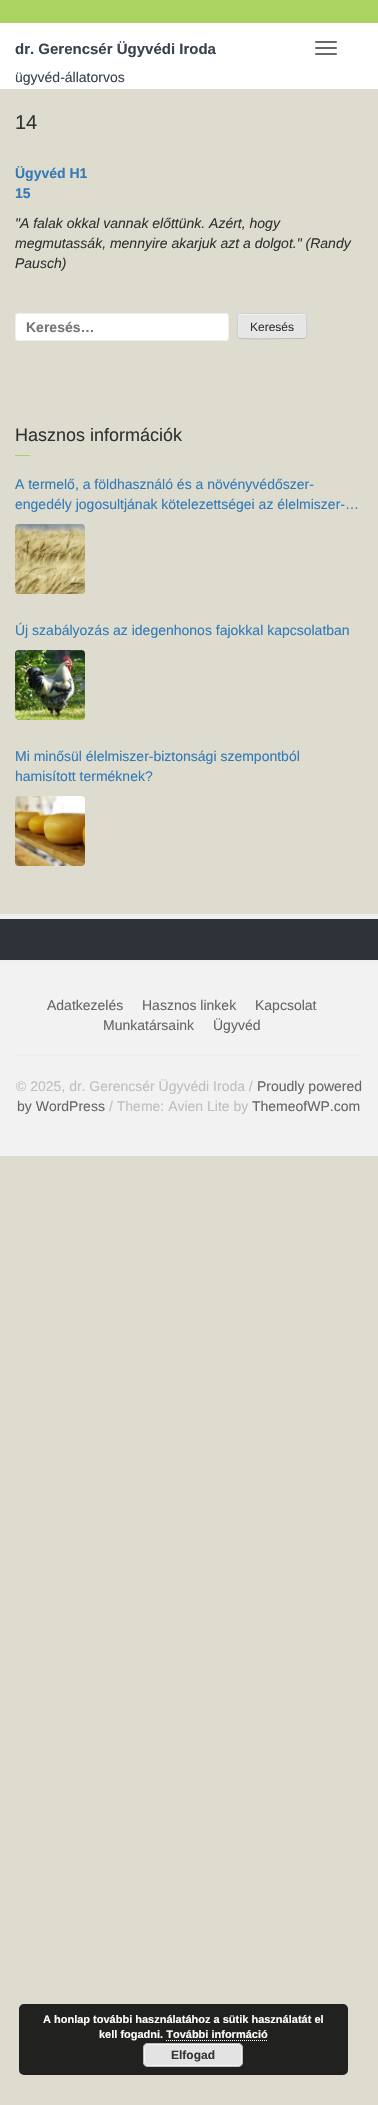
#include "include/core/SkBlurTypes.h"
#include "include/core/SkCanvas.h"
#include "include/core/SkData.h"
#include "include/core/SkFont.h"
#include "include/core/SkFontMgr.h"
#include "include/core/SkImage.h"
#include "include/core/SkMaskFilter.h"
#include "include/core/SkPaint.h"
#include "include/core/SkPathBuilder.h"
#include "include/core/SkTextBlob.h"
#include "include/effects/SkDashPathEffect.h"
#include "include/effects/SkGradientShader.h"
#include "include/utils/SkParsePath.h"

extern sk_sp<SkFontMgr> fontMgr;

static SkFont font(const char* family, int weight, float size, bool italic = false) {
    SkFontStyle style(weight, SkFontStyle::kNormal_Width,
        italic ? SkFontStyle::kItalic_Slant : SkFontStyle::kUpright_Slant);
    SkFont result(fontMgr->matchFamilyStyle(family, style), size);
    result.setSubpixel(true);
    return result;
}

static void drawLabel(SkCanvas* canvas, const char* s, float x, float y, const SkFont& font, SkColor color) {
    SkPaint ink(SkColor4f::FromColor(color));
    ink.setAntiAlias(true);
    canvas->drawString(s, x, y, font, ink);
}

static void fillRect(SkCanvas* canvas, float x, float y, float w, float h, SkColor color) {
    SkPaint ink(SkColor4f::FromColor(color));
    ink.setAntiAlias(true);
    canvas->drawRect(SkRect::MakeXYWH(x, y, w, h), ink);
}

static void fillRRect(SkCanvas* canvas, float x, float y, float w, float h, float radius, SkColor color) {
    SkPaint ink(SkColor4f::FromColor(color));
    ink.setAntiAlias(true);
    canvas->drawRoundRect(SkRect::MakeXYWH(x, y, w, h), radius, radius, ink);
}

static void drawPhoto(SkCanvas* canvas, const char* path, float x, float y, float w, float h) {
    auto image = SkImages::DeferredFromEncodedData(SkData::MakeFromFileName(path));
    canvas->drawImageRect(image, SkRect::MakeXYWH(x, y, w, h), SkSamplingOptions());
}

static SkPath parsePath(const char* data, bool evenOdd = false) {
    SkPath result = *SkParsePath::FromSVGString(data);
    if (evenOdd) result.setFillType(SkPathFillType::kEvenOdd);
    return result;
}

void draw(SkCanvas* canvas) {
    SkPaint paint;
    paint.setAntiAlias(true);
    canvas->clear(0xFFDDDCCE);
    fillRect(canvas, 0, 23, 378, 66, 0xFFFFFFFF);
    fillRect(canvas, 0, 0, 378, 23, 0xFFAAD362);
    SkFont font1 = font("Liberation Sans", 700, 15);
    drawLabel(canvas, "dr. Gerencsér Ügyvédi Iroda", 15, 54, font1, 0xFF3A424C);
    SkFont font2 = font("Liberation Sans", 400, 14);
    drawLabel(canvas, "ügyvéd-állatorvos", 15, 82, font2, 0xFF3A424C);
    fillRRect(canvas, 315, 41, 22, 2, 1, 0xFF686868);
    fillRRect(canvas, 315, 47, 22, 2, 1, 0xFF686868);
    fillRRect(canvas, 315, 53, 22, 2, 1, 0xFF686868);
    SkFont font3 = font("Liberation Sans", 400, 20);
    drawLabel(canvas, "14", 15, 129, font3, 0xFF333333);
    SkFont font4 = font("Liberation Sans", 700, 14);
    drawLabel(canvas, "Ügyvéd H1", 15, 178, font4, 0xFF337AB7);
    drawLabel(canvas, "15", 15, 198, font4, 0xFF337AB7);
    SkFont font5 = font("Liberation Sans", 400, 14, true);
    drawLabel(canvas, "\"A falak okkal vannak előttünk. Azért, hogy", 15, 228, font5, 0xFF333333);
    drawLabel(canvas, "megmutassák, mennyire akarjuk azt a dolgot.\" (Randy", 15, 248, font5, 0xFF333333);
    drawLabel(canvas, "Pausch)", 15, 268, font5, 0xFF333333);
    paint.setColor(0xFFFFFFFF);
    canvas->drawRoundRect(SkRect::MakeXYWH(15.5f, 313.5f, 213, 27), 2.5f, 2.5f, paint);
    paint.setStroke(true);
    paint.setStrokeWidth(1);
    paint.setColor(0xFFEFEFEF);
    canvas->drawRoundRect(SkRect::MakeXYWH(15.5f, 313.5f, 213, 27), 2.5f, 2.5f, paint);
    drawLabel(canvas, "Keresés…", 26, 332, font4, 0xFF757575);
    fillRRect(canvas, 237, 313, 70, 26, 3, 0xFFE6E6E6);
    paint.setStroke(false);
    paint.setColor(0xFFF3F3F3);
    canvas->drawPath(parsePath("M240 315H305L306 317C306 311 297 314 293 314H251C247 314 238 311 238 317C238 316 239 315 240 315Z"), paint);
    paint.setStroke(true);
    paint.setColor(0xFFBBBBBB);
    canvas->drawPath(parsePath("M306 338L304 338.5H293.5C287 338.5 240.5 339.5 238.5 338H238"), paint);
    paint.setColor(0xFFCCCCCC);
    canvas->drawPath(parsePath("M238 338C236.5 336 237.5 328.5 237.5 326C237.5 311 235 313.5 250.5 313.5H293.5C309 313.5 306.5 311 306.5 326C306.5 328.5 307.5 336 306 338"), paint);
    SkFont font6 = font("Liberation Sans", 400, 12);
    drawLabel(canvas, "Keresés", 250, 331, font6, 0xFF333333);
    SkFont font7 = font("Liberation Sans", 400, 18);
    drawLabel(canvas, "Hasznos információk", 15, 441, font7, 0xFF333333);
    fillRect(canvas, 15, 455, 15, 1, 0xFFA9D360);
    drawLabel(canvas, "A termelő, a földhasználó és a növényvédőszer-", 15, 489, font2, 0xFF337AB7);
    drawLabel(canvas, "engedély jogosultjának kötelezettségei az élelmiszer-…", 15, 509, font2, 0xFF337AB7);
    drawPhoto(canvas, "assets/img1.png", 15, 524, 70, 70);
    drawLabel(canvas, "Új szabályozás az idegenhonos fajokkal kapcsolatban", 15, 635, font2, 0xFF337AB7);
    drawPhoto(canvas, "assets/img2.png", 15, 650, 70, 70);
    drawLabel(canvas, "Mi minősül élelmiszer-biztonsági szempontból", 15, 761, font2, 0xFF337AB7);
    drawLabel(canvas, "hamisított terméknek?", 15, 781, font2, 0xFF337AB7);
    drawPhoto(canvas, "assets/img3.png", 15, 796, 70, 70);
    fillRect(canvas, 0, 919, 378, 41, 0xFF2E3339);
    fillRect(canvas, 0, 914, 378, 5, 0xFFEFEFEF);
    fillRect(canvas, 0, 960, 378, 5, 0xFFEFEFEF);
    fillRect(canvas, 0, 965, 378, 191, 0xFFF2F2F2);
    drawLabel(canvas, "Adatkezelés", 47, 1010, font2, 0xFF666666);
    drawLabel(canvas, "Hasznos linkek", 142, 1010, font2, 0xFF666666);
    drawLabel(canvas, "Kapcsolat", 255, 1010, font2, 0xFF666666);
    drawLabel(canvas, "Munkatársaink", 103, 1030, font2, 0xFF666666);
    drawLabel(canvas, "Ügyvéd", 213, 1030, font2, 0xFF666666);
    fillRect(canvas, 15, 1055, 348, 1, 0xFFEEEEEE);
    drawLabel(canvas, "© 2025, dr. Gerencsér Ügyvédi Iroda /", 16, 1091, font2, 0xFFBFBFBF);
    drawLabel(canvas, "Proudly powered", 257, 1091, font2, 0xFF666666);
    drawLabel(canvas, "by WordPress", 17, 1111, font2, 0xFF666666);
    drawLabel(canvas, "/ Theme: Avien Lite by", 109, 1111, font2, 0xFFBFBFBF);
    drawLabel(canvas, "ThemeofWP.com", 252, 1111, font2, 0xFF666666);
    fillRRect(canvas, 19, 2004, 329, 71, 5, 0xFF21211F);
    SkFont font8 = font("Liberation Sans", 700, 11);
    drawLabel(canvas, "A honlap további használatához a sütik használatát el", 43, 2023, font8, 0xFFFFFFFF);
    drawLabel(canvas, "kell fogadni. További információ", 99, 2038, font8, 0xFFFFFFFF);
    paint.setColor(0xFFFFFFFF);
    paint.setPathEffect(SkDashPathEffect::Make({{1, 1}}, 0));
    canvas->drawPath(parsePath("M166 2040.5H268"), paint);
    paint.setPathEffect(nullptr);
    fillRRect(canvas, 143, 2043, 100, 24, 5, 0xFFE3E3E3);
    paint.setColor(0xFFF6F6F6);
    canvas->drawRoundRect(SkRect::MakeXYWH(144.5f, 2044.5f, 97, 21), 3.5f, 3.5f, paint);
    paint.setColor(0xFFBBBBBB);
    canvas->drawRoundRect(SkRect::MakeXYWH(143.5f, 2043.5f, 99, 23), 4.5f, 4.5f, paint);
    SkFont font9 = font("Liberation Sans", 700, 12);
    drawLabel(canvas, "Elfogad", 171, 2059, font9, 0xFF333333);
}
